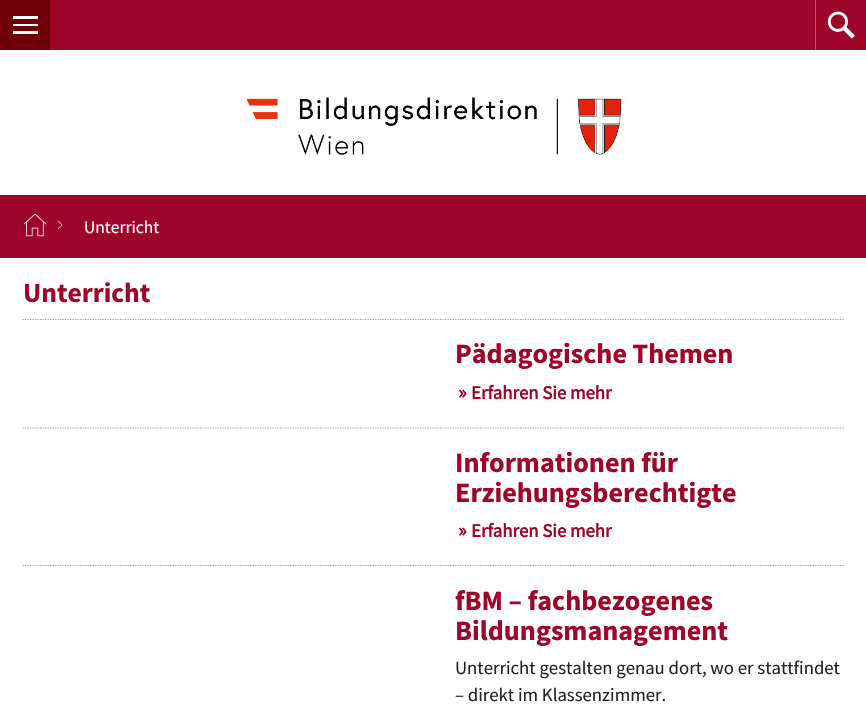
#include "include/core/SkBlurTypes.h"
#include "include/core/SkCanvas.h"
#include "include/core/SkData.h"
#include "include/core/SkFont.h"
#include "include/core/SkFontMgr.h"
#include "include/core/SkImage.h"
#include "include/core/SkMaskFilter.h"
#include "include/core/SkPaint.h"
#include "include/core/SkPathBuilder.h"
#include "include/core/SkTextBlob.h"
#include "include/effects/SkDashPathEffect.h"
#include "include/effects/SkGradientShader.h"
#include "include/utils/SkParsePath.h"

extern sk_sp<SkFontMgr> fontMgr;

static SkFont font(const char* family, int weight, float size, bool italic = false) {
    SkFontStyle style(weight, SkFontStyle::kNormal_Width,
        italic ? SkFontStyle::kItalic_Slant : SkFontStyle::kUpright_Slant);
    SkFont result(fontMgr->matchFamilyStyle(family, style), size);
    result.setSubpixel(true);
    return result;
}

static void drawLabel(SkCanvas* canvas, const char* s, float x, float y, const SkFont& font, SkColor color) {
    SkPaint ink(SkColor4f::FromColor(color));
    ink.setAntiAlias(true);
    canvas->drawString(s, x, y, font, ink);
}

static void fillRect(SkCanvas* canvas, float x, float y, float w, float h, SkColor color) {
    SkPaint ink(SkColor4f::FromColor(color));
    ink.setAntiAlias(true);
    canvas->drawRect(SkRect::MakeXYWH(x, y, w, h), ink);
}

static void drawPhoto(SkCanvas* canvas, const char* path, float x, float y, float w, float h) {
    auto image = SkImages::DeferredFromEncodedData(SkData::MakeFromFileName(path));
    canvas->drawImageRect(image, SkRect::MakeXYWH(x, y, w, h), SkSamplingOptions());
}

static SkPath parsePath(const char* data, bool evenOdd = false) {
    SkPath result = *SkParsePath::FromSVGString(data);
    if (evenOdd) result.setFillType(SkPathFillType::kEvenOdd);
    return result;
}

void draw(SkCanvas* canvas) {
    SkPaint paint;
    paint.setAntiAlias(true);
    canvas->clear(0xFFFFFFFF);
    fillRect(canvas, 50, 0, 816, 50, 0xFF9E0529);
    fillRect(canvas, 0, 0, 50, 50, 0xFF720009);
    fillRect(canvas, 13, 24, 25, 2, 0xFFFFFFFF);
    fillRect(canvas, 13, 16, 25, 3, 0xFFFFFFFF);
    fillRect(canvas, 13, 31, 25, 3, 0xFFFFFFFF);
    drawPhoto(canvas, "assets/img1.png", 827, 11, 28, 28);
    fillRect(canvas, 815, 0, 1, 50, 0xFFBB5069);
    drawPhoto(canvas, "assets/img2.png", 246, 97, 376, 58);
    fillRect(canvas, 0, 195, 866, 63, 0xFF9E0529);
    drawPhoto(canvas, "assets/img3.png", 23, 213, 24, 24);
    drawPhoto(canvas, "assets/img4.png", 57, 220, 6, 10);
    SkFont font1 = font("Source Sans Pro", 400, 17.5f);
    drawLabel(canvas, "Unterricht", 84, 233, font1, 0xFFFFFFFF);
    paint.setStroke(true);
    paint.setStrokeWidth(1.2f);
    paint.setColor(0xFF999999);
    paint.setPathEffect(SkDashPathEffect::Make({{1.25f, 1.25f}}, 0));
    canvas->drawPath(parsePath("M22.5 319.5H844"), paint);
    paint.setPathEffect(nullptr);
    SkFont font2 = font("Source Sans Pro", 700, 27.5f);
    drawLabel(canvas, "Unterricht", 23, 302, font2, 0xFF9E0529);
    paint.setPathEffect(SkDashPathEffect::Make({{1.25f, 1.25f}}, 0));
    canvas->drawPath(parsePath("M22.5 428H844"), paint);
    paint.setPathEffect(nullptr);
    SkFont font3 = font("Source Sans Pro", 700, 28.1f);
    drawLabel(canvas, "Pädagogische Themen", 455, 363, font3, 0xFF9E0529);
    SkFont font4 = font("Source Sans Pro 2", 700, 20);
    drawLabel(canvas, "»", 458, 399, font4, 0xFF9E0529);
    SkFont font5 = font("Source Sans Pro 2", 700, 18.75f);
    drawLabel(canvas, "Erfahren Sie mehr", 471, 399, font5, 0xFF9E0529);
    paint.setPathEffect(SkDashPathEffect::Make({{1.25f, 1.25f}}, 0));
    canvas->drawPath(parsePath("M22.5 565.5H844"), paint);
    paint.setPathEffect(nullptr);
    drawLabel(canvas, "Informationen für", 455, 472, font3, 0xFF9E0529);
    drawLabel(canvas, "Erziehungsberechtigte", 455, 502, font3, 0xFF9E0529);
    drawLabel(canvas, "»", 458, 537, font4, 0xFF9E0529);
    drawLabel(canvas, "Erfahren Sie mehr", 471, 537, font5, 0xFF9E0529);
    drawLabel(canvas, "fBM – fachbezogenes", 455, 610, font3, 0xFF9E0529);
    drawLabel(canvas, "Bildungsmanagement", 455, 640, font3, 0xFF9E0529);
    SkFont font6 = font("Source Sans Pro", 400, 18.75f);
    drawLabel(canvas, "Unterricht gestalten genau dort, wo er stattfindet", 455, 674, font6, 0xFF222222);
    drawLabel(canvas, "– direkt im Klassenzimmer.", 455, 701, font6, 0xFF222222);
}
